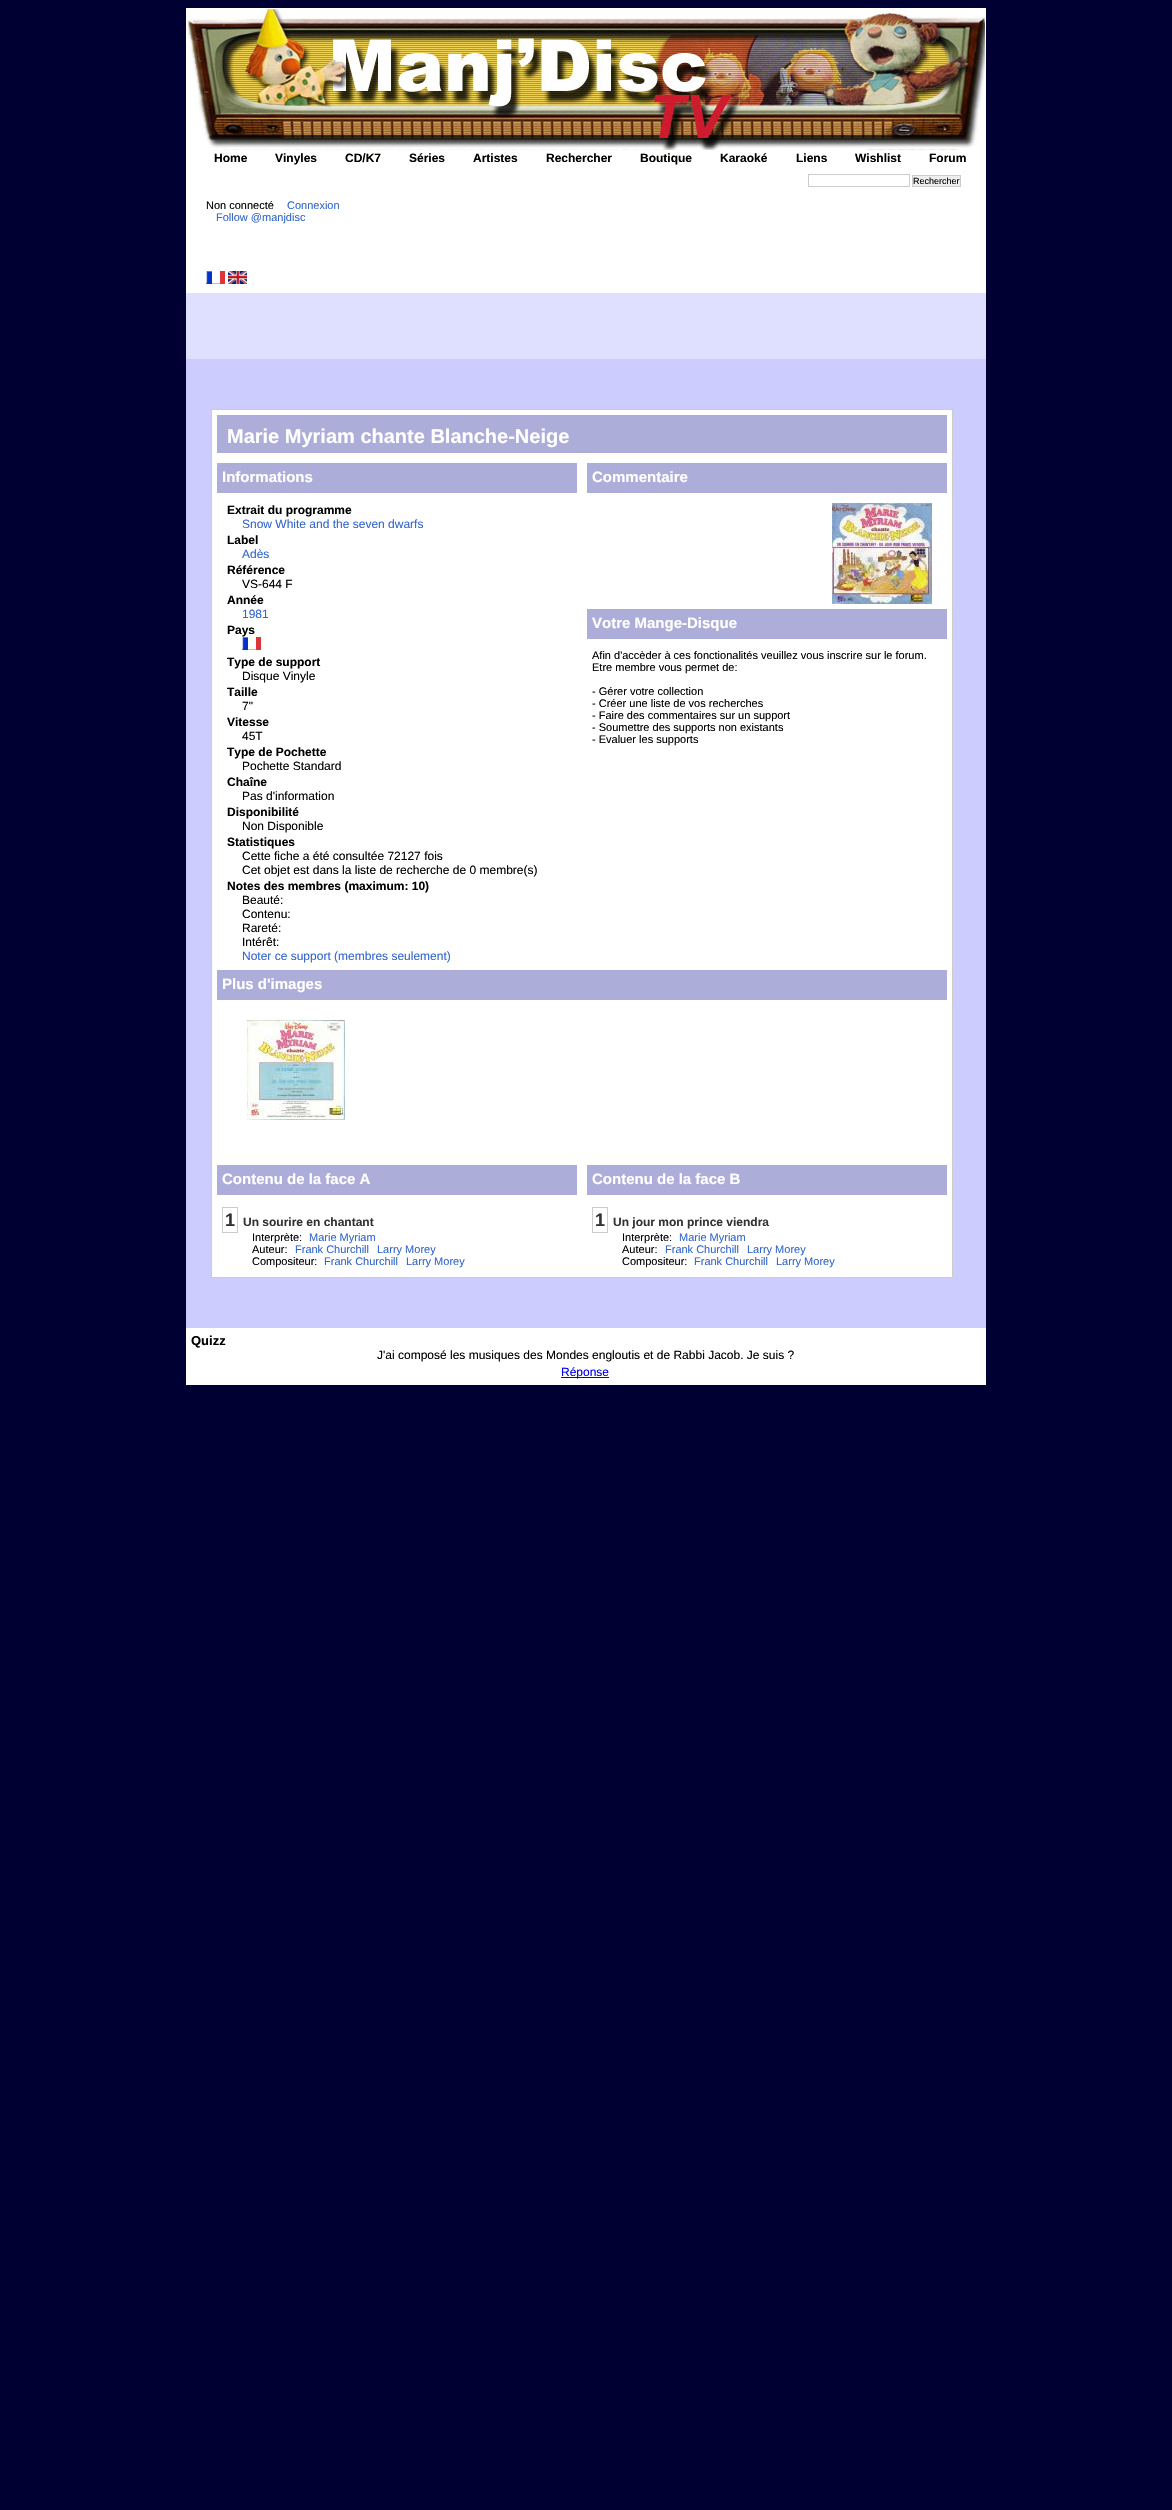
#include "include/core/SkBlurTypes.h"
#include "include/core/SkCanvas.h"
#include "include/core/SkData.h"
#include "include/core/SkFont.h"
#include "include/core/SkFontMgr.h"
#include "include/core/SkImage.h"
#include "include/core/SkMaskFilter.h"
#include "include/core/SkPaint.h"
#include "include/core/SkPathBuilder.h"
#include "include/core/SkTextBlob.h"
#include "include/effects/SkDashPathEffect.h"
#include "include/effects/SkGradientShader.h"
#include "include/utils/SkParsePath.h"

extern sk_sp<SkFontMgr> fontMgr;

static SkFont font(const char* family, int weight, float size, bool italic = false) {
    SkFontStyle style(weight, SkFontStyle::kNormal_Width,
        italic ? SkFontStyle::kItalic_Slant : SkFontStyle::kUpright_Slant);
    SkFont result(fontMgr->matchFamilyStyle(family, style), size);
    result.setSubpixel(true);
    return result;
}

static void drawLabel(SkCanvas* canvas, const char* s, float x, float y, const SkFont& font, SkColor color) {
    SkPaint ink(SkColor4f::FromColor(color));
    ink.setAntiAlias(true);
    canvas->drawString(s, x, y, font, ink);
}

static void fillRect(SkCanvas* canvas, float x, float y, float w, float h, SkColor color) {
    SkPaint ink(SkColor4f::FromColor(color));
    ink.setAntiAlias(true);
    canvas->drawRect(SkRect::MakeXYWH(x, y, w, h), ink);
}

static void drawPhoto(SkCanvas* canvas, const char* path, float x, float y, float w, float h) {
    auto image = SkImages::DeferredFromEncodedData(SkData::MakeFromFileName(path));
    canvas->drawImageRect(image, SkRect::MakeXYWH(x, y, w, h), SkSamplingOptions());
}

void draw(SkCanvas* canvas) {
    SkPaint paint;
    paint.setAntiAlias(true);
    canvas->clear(0xFF000033);
    fillRect(canvas, 186, 293, 800, 66, 0xFFDFDFFF);
    fillRect(canvas, 186, 8, 800, 285, 0xFFFFFFFF);
    drawPhoto(canvas, "assets/img1.png", 187, 9, 798, 141);
    SkFont font1 = font("Liberation Sans", 700, 12);
    drawLabel(canvas, "Home", 214, 162, font1, 0xFF000000);
    drawLabel(canvas, "Vinyles", 275, 162, font1, 0xFF000000);
    drawLabel(canvas, "CD/K7", 345, 162, font1, 0xFF000000);
    drawLabel(canvas, "Séries", 409, 162, font1, 0xFF000000);
    drawLabel(canvas, "Artistes", 473, 162, font1, 0xFF000000);
    drawLabel(canvas, "Rechercher", 546, 162, font1, 0xFF000000);
    drawLabel(canvas, "Boutique", 640, 162, font1, 0xFF000000);
    drawLabel(canvas, "Karaoké", 720, 162, font1, 0xFF000000);
    drawLabel(canvas, "Liens", 796, 162, font1, 0xFF000000);
    drawLabel(canvas, "Wishlist", 855, 162, font1, 0xFF000000);
    drawLabel(canvas, "Forum", 929, 162, font1, 0xFF000000);
    paint.setStroke(true);
    paint.setStrokeWidth(1);
    paint.setColor(0xFFCCCCCC);
    canvas->drawRect(SkRect::MakeXYWH(808.5f, 174.5f, 101, 12), paint);
    paint.setStroke(false);
    paint.setColor(0xFFEEEEEE);
    canvas->drawRect(SkRect::MakeXYWH(912.5f, 175.5f, 48, 11), paint);
    paint.setStroke(true);
    paint.setColor(0xFFCCCCCC);
    canvas->drawRect(SkRect::MakeXYWH(912.5f, 175.5f, 48, 11), paint);
    SkFont font2 = font("Liberation Sans", 400, 9);
    drawLabel(canvas, "Rechercher", 913, 184, font2, 0xFF000000);
    SkFont font3 = font("Liberation Sans", 400, 11);
    drawLabel(canvas, "Non connecté", 206, 209, font3, 0xFF000000);
    drawLabel(canvas, "Connexion", 287, 209, font3, 0xFF3366CC);
    drawLabel(canvas, "Follow @manjdisc", 216, 221, font3, 0xFF3366CC);
    drawPhoto(canvas, "assets/img2.png", 206, 271, 19, 13);
    drawPhoto(canvas, "assets/img3.png", 228, 271, 19, 13);
    fillRect(canvas, 186, 359, 800, 969, 0xFFCCCCFF);
    fillRect(canvas, 212, 458, 740, 819, 0xFFFFFFFF);
    canvas->drawRect(SkRect::MakeXYWH(211.5f, 409.5f, 741, 868), paint);
    paint.setStroke(false);
    paint.setColor(0xFFADADD9);
    canvas->drawRect(SkRect::MakeXYWH(214.5f, 412.5f, 735, 43), paint);
    paint.setStroke(true);
    paint.setStrokeWidth(5);
    paint.setColor(0xFFFFFFFF);
    canvas->drawRect(SkRect::MakeXYWH(214.5f, 412.5f, 735, 43), paint);
    SkFont font4 = font("Liberation Sans", 700, 20);
    drawLabel(canvas, "Marie Myriam chante Blanche-Neige", 227, 443, font4, 0xFFFFFFFF);
    fillRect(canvas, 217, 463, 360, 30, 0xFFADADD9);
    SkFont font5 = font("Liberation Sans", 700, 15);
    drawLabel(canvas, "Informations", 222, 482, font5, 0xFFFFFFFF);
    drawLabel(canvas, "Extrait du programme", 227, 514, font1, 0xFF000000);
    SkFont font6 = font("Liberation Sans", 400, 12);
    drawLabel(canvas, "Snow White and the seven dwarfs", 242, 528, font6, 0xFF3366CC);
    drawLabel(canvas, "Label", 227, 544, font1, 0xFF000000);
    drawLabel(canvas, "Adès", 242, 558, font6, 0xFF3366CC);
    drawLabel(canvas, "Référence", 227, 574, font1, 0xFF000000);
    drawLabel(canvas, "VS-644 F", 242, 588, font6, 0xFF000000);
    drawLabel(canvas, "Année", 227, 604, font1, 0xFF000000);
    drawLabel(canvas, "1981", 242, 618, font6, 0xFF3366CC);
    drawLabel(canvas, "Pays", 227, 634, font1, 0xFF000000);
    drawPhoto(canvas, "assets/img2.png", 242, 637, 19, 13);
    drawLabel(canvas, "Type de support", 227, 666, font1, 0xFF000000);
    drawLabel(canvas, "Disque Vinyle", 242, 680, font6, 0xFF000000);
    drawLabel(canvas, "Taille", 227, 696, font1, 0xFF000000);
    drawLabel(canvas, "7\"", 242, 710, font6, 0xFF000000);
    drawLabel(canvas, "Vitesse", 227, 726, font1, 0xFF000000);
    drawLabel(canvas, "45T", 242, 740, font6, 0xFF000000);
    drawLabel(canvas, "Type de Pochette", 227, 756, font1, 0xFF000000);
    drawLabel(canvas, "Pochette Standard", 242, 770, font6, 0xFF000000);
    drawLabel(canvas, "Chaîne", 227, 786, font1, 0xFF000000);
    drawLabel(canvas, "Pas d'information", 242, 800, font6, 0xFF000000);
    drawLabel(canvas, "Disponibilité", 227, 816, font1, 0xFF000000);
    drawLabel(canvas, "Non Disponible", 242, 830, font6, 0xFF000000);
    drawLabel(canvas, "Statistiques", 227, 846, font1, 0xFF000000);
    drawLabel(canvas, "Cette fiche a été consultée 72127 fois", 242, 860, font6, 0xFF000000);
    drawLabel(canvas, "Cet objet est dans la liste de recherche de 0 membre(s)", 242, 874, font6, 0xFF000000);
    drawLabel(canvas, "Notes des membres (maximum: 10)", 227, 890, font1, 0xFF000000);
    drawLabel(canvas, "Beauté:", 242, 904, font6, 0xFF000000);
    drawLabel(canvas, "Contenu:", 242, 918, font6, 0xFF000000);
    drawLabel(canvas, "Rareté:", 242, 932, font6, 0xFF000000);
    drawLabel(canvas, "Intérêt:", 242, 946, font6, 0xFF000000);
    drawLabel(canvas, "Noter ce support (membres seulement)", 242, 960, font6, 0xFF3366CC);
    fillRect(canvas, 587, 463, 360, 30, 0xFFADADD9);
    drawLabel(canvas, "Commentaire", 592, 482, font5, 0xFFFFFFFF);
    drawPhoto(canvas, "assets/img4.png", 832, 503, 100, 101);
    fillRect(canvas, 587, 609, 360, 30, 0xFFADADD9);
    drawLabel(canvas, "Votre Mange-Disque", 592, 628, font5, 0xFFFFFFFF);
    drawLabel(canvas, "Afin d'accèder à ces fonctionalités veuillez vous inscrire sur le forum.", 592, 659, font3, 0xFF000000);
    drawLabel(canvas, "Etre membre vous permet de:", 592, 671, font3, 0xFF000000);
    drawLabel(canvas, "- Gérer votre collection", 592, 695, font3, 0xFF000000);
    drawLabel(canvas, "- Créer une liste de vos recherches", 592, 707, font3, 0xFF000000);
    drawLabel(canvas, "- Faire des commentaires sur un support", 592, 719, font3, 0xFF000000);
    drawLabel(canvas, "- Soumettre des supports non existants", 592, 731, font3, 0xFF000000);
    drawLabel(canvas, "- Evaluer les supports", 592, 743, font3, 0xFF000000);
    fillRect(canvas, 217, 970, 730, 30, 0xFFADADD9);
    drawLabel(canvas, "Plus d'images", 222, 989, font5, 0xFFFFFFFF);
    drawPhoto(canvas, "assets/img5.png", 247, 1020, 98, 100);
    fillRect(canvas, 217, 1165, 360, 30, 0xFFADADD9);
    drawLabel(canvas, "Contenu de la face A", 222, 1184, font5, 0xFFFFFFFF);
    paint.setStrokeWidth(1);
    paint.setColor(0xFFCCCCCC);
    canvas->drawRect(SkRect::MakeXYWH(222.5f, 1207.5f, 15, 25), paint);
    SkFont font7 = font("Liberation Sans", 700, 18);
    drawLabel(canvas, "1", 225, 1226, font7, 0xFF333333);
    drawLabel(canvas, "Un sourire en chantant", 243, 1226, font1, 0xFF333333);
    drawLabel(canvas, "Interprète:", 252, 1241, font3, 0xFF000000);
    drawLabel(canvas, "Marie Myriam", 309, 1241, font3, 0xFF3366CC);
    drawLabel(canvas, "Auteur:", 252, 1253, font3, 0xFF000000);
    drawLabel(canvas, "Frank Churchill", 295, 1253, font3, 0xFF3366CC);
    drawLabel(canvas, "Larry Morey", 377, 1253, font3, 0xFF3366CC);
    drawLabel(canvas, "Compositeur:", 252, 1265, font3, 0xFF000000);
    drawLabel(canvas, "Frank Churchill", 324, 1265, font3, 0xFF3366CC);
    drawLabel(canvas, "Larry Morey", 406, 1265, font3, 0xFF3366CC);
    fillRect(canvas, 587, 1165, 360, 30, 0xFFADADD9);
    drawLabel(canvas, "Contenu de la face B", 592, 1184, font5, 0xFFFFFFFF);
    canvas->drawRect(SkRect::MakeXYWH(592.5f, 1207.5f, 15, 25), paint);
    drawLabel(canvas, "1", 595, 1226, font7, 0xFF333333);
    drawLabel(canvas, "Un jour mon prince viendra", 613, 1226, font1, 0xFF333333);
    drawLabel(canvas, "Interprète:", 622, 1241, font3, 0xFF000000);
    drawLabel(canvas, "Marie Myriam", 679, 1241, font3, 0xFF3366CC);
    drawLabel(canvas, "Auteur:", 622, 1253, font3, 0xFF000000);
    drawLabel(canvas, "Frank Churchill", 665, 1253, font3, 0xFF3366CC);
    drawLabel(canvas, "Larry Morey", 747, 1253, font3, 0xFF3366CC);
    drawLabel(canvas, "Compositeur:", 622, 1265, font3, 0xFF000000);
    drawLabel(canvas, "Frank Churchill", 694, 1265, font3, 0xFF3366CC);
    drawLabel(canvas, "Larry Morey", 776, 1265, font3, 0xFF3366CC);
    fillRect(canvas, 186, 1328, 800, 57, 0xFFFFFFFF);
    SkFont font8 = font("Liberation Sans", 700, 13);
    drawLabel(canvas, "Quizz", 191, 1345, font8, 0xFF000000);
    drawLabel(canvas, "J'ai composé les musiques des Mondes engloutis et de Rabbi Jacob. Je suis ?", 377, 1359, font6, 0xFF000000);
    fillRect(canvas, 561, 1377, 48, 1, 0xFF0000EE);
    drawLabel(canvas, "Réponse", 561, 1376, font6, 0xFF0000EE);
}
